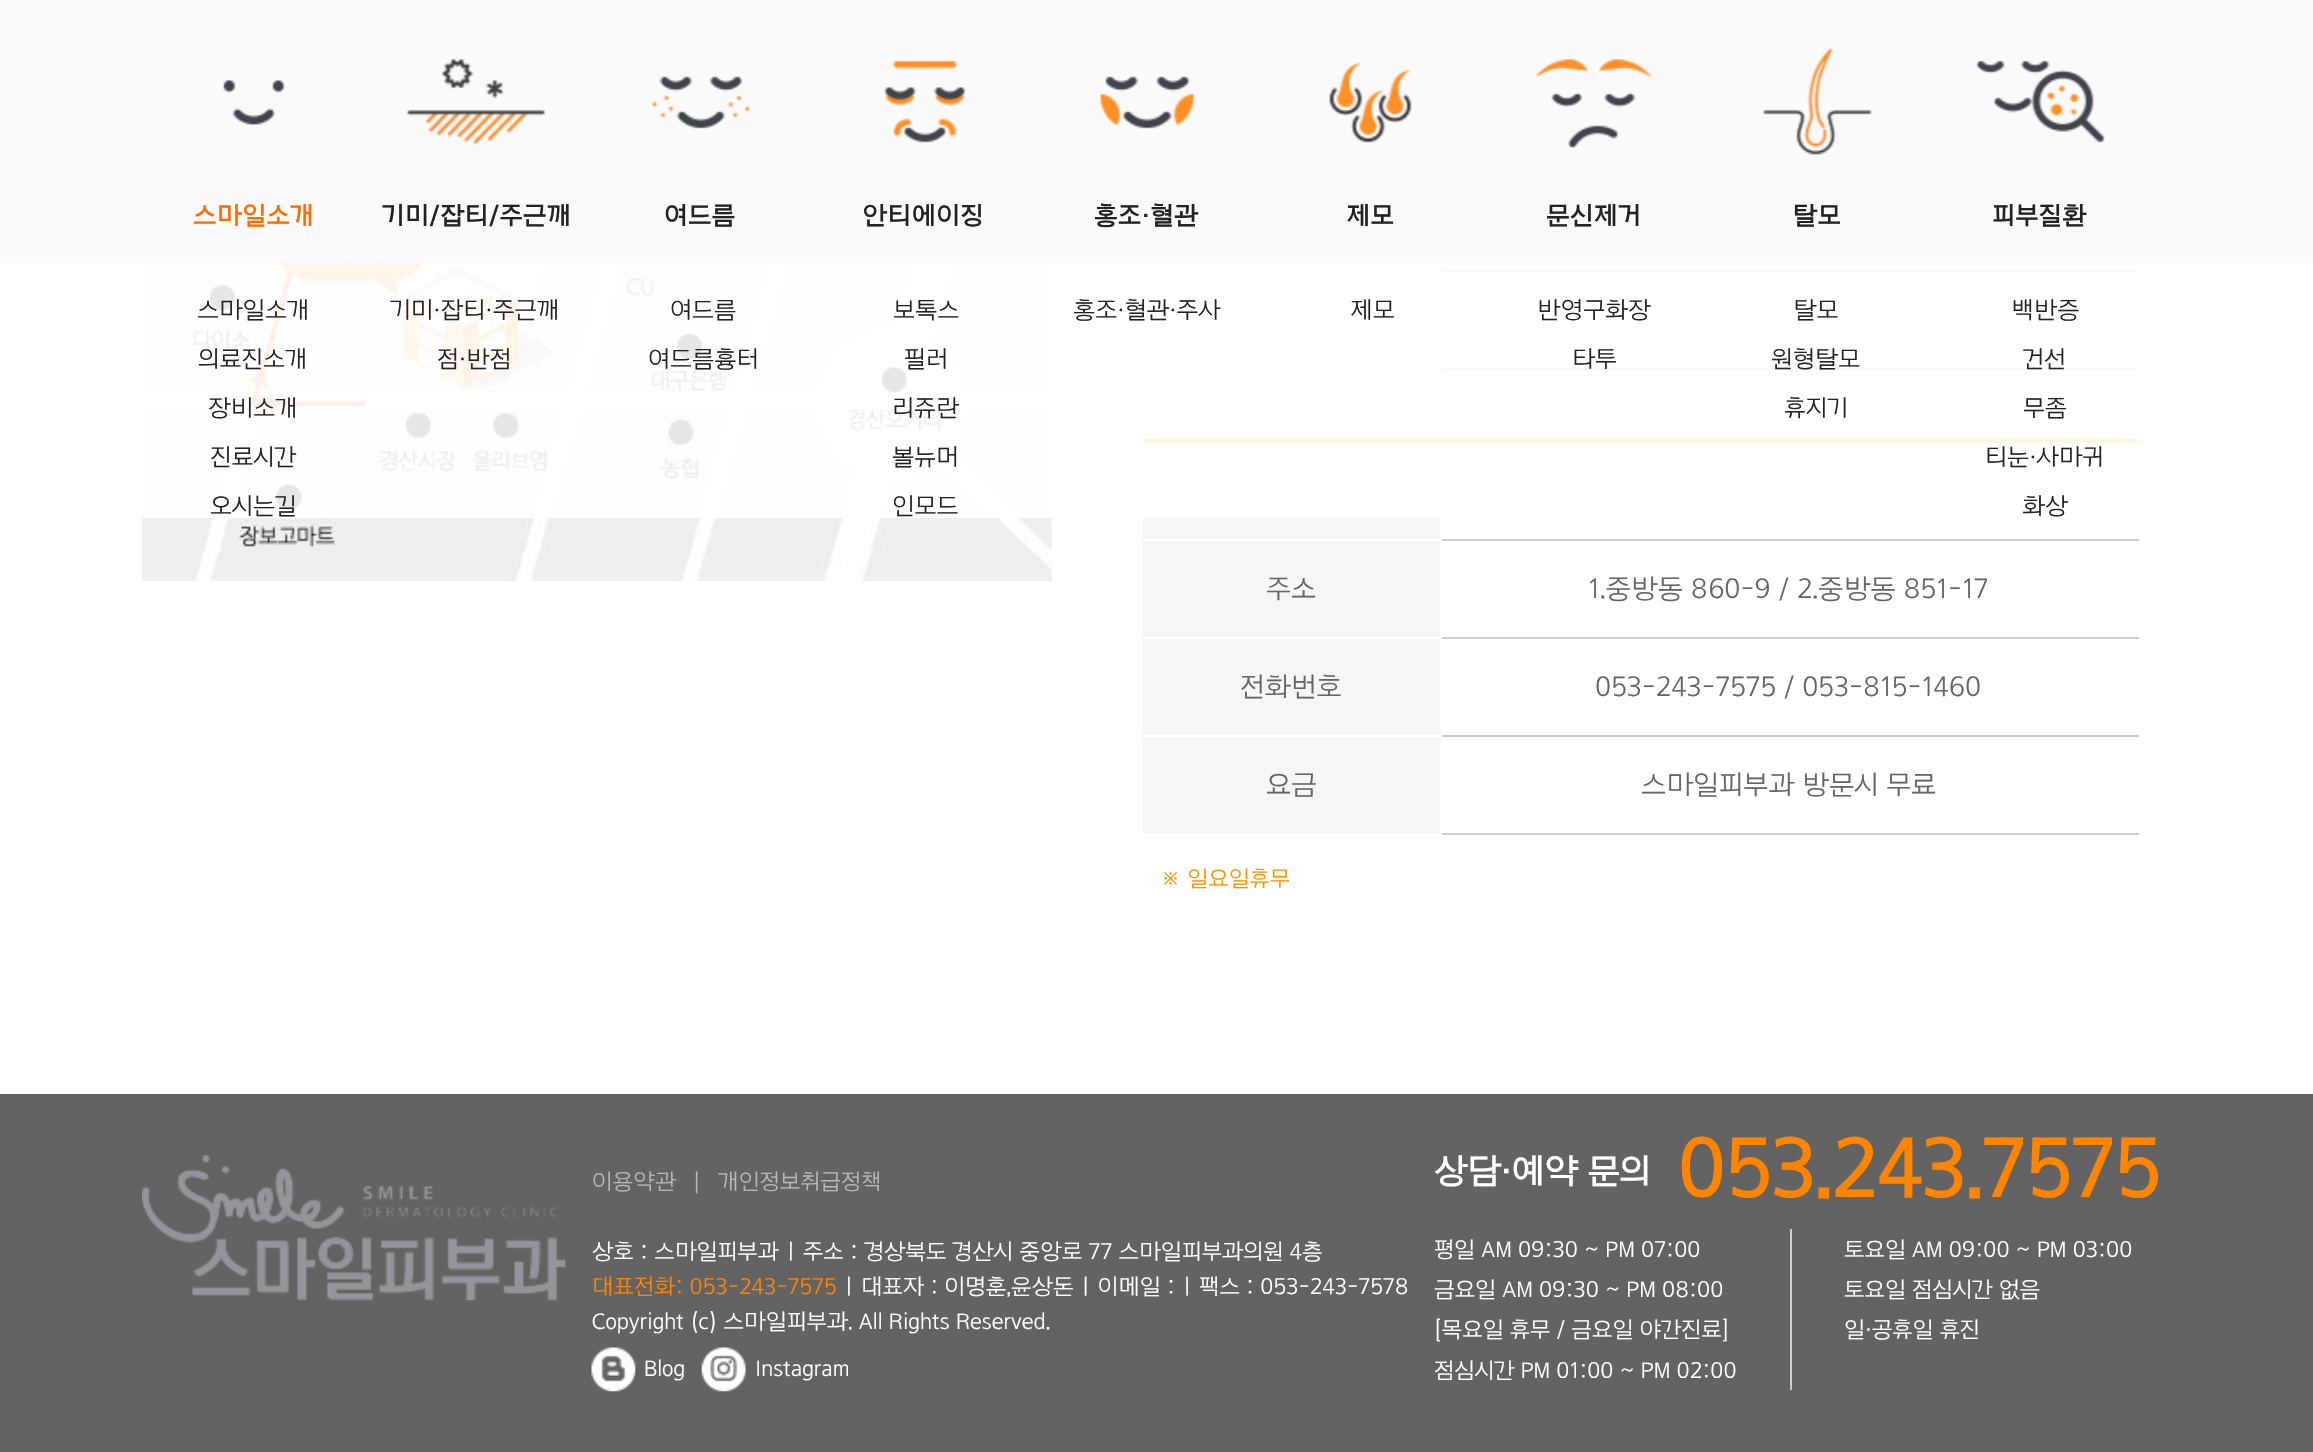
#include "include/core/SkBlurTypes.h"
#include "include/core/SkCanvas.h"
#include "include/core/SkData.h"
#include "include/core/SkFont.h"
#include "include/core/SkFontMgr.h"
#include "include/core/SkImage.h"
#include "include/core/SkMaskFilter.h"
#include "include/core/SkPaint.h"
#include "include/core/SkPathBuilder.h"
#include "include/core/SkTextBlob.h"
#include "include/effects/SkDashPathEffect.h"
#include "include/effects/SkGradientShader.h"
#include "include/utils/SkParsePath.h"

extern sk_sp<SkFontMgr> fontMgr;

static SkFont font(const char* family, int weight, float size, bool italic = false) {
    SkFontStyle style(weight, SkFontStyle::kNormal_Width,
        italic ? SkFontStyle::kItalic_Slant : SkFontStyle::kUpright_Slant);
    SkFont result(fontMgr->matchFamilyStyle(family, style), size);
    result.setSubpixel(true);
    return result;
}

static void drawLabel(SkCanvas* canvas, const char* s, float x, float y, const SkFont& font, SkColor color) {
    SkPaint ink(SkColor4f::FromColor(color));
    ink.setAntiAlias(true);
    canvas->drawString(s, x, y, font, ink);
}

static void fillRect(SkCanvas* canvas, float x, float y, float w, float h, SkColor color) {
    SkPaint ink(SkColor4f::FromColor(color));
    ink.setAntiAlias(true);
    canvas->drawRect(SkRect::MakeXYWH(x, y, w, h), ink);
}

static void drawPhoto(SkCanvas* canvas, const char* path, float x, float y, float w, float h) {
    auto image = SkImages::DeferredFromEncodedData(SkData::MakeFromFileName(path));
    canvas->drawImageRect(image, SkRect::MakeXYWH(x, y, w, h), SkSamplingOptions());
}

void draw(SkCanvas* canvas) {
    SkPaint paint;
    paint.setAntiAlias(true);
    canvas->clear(0xFFFFFFFF);
    fillRect(canvas, 0, 0, 2313, 263, 0xFFFAFAFA);
    drawPhoto(canvas, "assets/img1.png", 223, 80, 62, 45);
    SkFont font1 = font("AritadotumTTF", 600, 26.25f);
    drawLabel(canvas, "스마일소개", 193, 224, font1, 0xFFFF6C00);
    drawPhoto(canvas, "assets/img2.png", 406, 59, 140, 85);
    drawLabel(canvas, "기미/잡티/주근깨", 382, 224, font1, 0xFF232323);
    drawPhoto(canvas, "assets/img3.png", 651, 76, 99, 53);
    drawLabel(canvas, "여드름", 664, 224, font1, 0xFF232323);
    drawPhoto(canvas, "assets/img4.png", 884, 60, 82, 83);
    drawLabel(canvas, "안티에이징", 862, 224, font1, 0xFF232323);
    drawPhoto(canvas, "assets/img5.png", 1099, 76, 96, 53);
    drawLabel(canvas, "홍조·혈관", 1094, 224, font1, 0xFF232323);
    drawPhoto(canvas, "assets/img6.png", 1329, 62, 83, 81);
    drawLabel(canvas, "제모", 1346, 224, font1, 0xFF232323);
    drawPhoto(canvas, "assets/img7.png", 1535, 59, 117, 89);
    drawLabel(canvas, "문신제거", 1546, 224, font1, 0xFF232323);
    drawPhoto(canvas, "assets/img8.png", 1763, 48, 109, 107);
    drawLabel(canvas, "탈모", 1792, 224, font1, 0xFF232323);
    drawPhoto(canvas, "assets/img9.png", 1976, 60, 129, 83);
    drawLabel(canvas, "피부질환", 1992, 224, font1, 0xFF232323);
    drawPhoto(canvas, "assets/img10.png", 142, 263, 910, 318);
    fillRect(canvas, 1143, 263, 297, 7, 0xFFF6F6F6);
    fillRect(canvas, 1440, 270, 699, 2, 0xFFCCCCCC);
    fillRect(canvas, 1440, 270, 2, 2, 0xFFFFFFFF);
    fillRect(canvas, 1143, 272, 297, 96, 0xFFF6F6F6);
    fillRect(canvas, 1440, 368, 699, 2, 0xFFCCCCCC);
    fillRect(canvas, 1440, 368, 2, 2, 0xFFFFFFFF);
    fillRect(canvas, 1143, 439, 994, 4, 0xFFFF9000);
    fillRect(canvas, 1143, 443, 297, 96, 0xFFF6F6F6);
    fillRect(canvas, 142, 263, 1997, 255, 0xE6FFFFFF);
    SkFont font2 = font("AritadotumTTF", 500, 24.5f);
    drawLabel(canvas, "스마일소개", 197, 318, font2, 0xFF232323);
    drawLabel(canvas, "의료진소개", 198, 367, font2, 0xFF232323);
    drawLabel(canvas, "장비소개", 208, 416, font2, 0xFF232323);
    drawLabel(canvas, "진료시간", 210, 465, font2, 0xFF232323);
    drawLabel(canvas, "오시는길", 210, 514, font2, 0xFF232323);
    drawLabel(canvas, "기미·잡티·주근깨", 390, 318, font2, 0xFF232323);
    drawLabel(canvas, "점·반점", 437, 367, font2, 0xFF232323);
    drawLabel(canvas, "여드름", 670, 318, font2, 0xFF232323);
    drawLabel(canvas, "여드름흉터", 648, 367, font2, 0xFF232323);
    drawLabel(canvas, "보톡스", 893, 318, font2, 0xFF232323);
    drawLabel(canvas, "필러", 904, 367, font2, 0xFF232323);
    drawLabel(canvas, "리쥬란", 892, 416, font2, 0xFF232323);
    drawLabel(canvas, "볼뉴머", 892, 465, font2, 0xFF232323);
    drawLabel(canvas, "인모드", 892, 514, font2, 0xFF232323);
    drawLabel(canvas, "홍조·혈관·주사", 1073, 318, font2, 0xFF232323);
    drawLabel(canvas, "제모", 1350, 318, font2, 0xFF232323);
    drawLabel(canvas, "반영구화장", 1537, 318, font2, 0xFF232323);
    drawLabel(canvas, "타투", 1572, 367, font2, 0xFF232323);
    drawLabel(canvas, "탈모", 1793, 318, font2, 0xFF232323);
    drawLabel(canvas, "원형탈모", 1771, 367, font2, 0xFF232323);
    drawLabel(canvas, "휴지기", 1784, 416, font2, 0xFF232323);
    drawLabel(canvas, "백반증", 2011, 318, font2, 0xFF232323);
    drawLabel(canvas, "건선", 2023, 367, font2, 0xFF232323);
    drawLabel(canvas, "무좀", 2023, 416, font2, 0xFF232323);
    drawLabel(canvas, "티눈·사마귀", 1985, 465, font2, 0xFF232323);
    drawLabel(canvas, "화상", 2022, 514, font2, 0xFF232323);
    fillRect(canvas, 1440, 539, 699, 2, 0xFFCCCCCC);
    fillRect(canvas, 1440, 539, 2, 2, 0xFFFFFFFF);
    fillRect(canvas, 1143, 541, 297, 96, 0xFFF6F6F6);
    fillRect(canvas, 1440, 637, 699, 2, 0xFFCCCCCC);
    fillRect(canvas, 1440, 637, 2, 2, 0xFFFFFFFF);
    SkFont font3 = font("AritadotumTTF", 500, 28);
    drawLabel(canvas, "주소", 1266, 598, font3, 0xFF666666);
    drawLabel(canvas, "1.중방동 860-9 / 2.중방동 851-17", 1588, 598, font3, 0xFF666666);
    fillRect(canvas, 1143, 639, 297, 96, 0xFFF6F6F6);
    fillRect(canvas, 1440, 735, 699, 2, 0xFFCCCCCC);
    fillRect(canvas, 1440, 735, 2, 2, 0xFFFFFFFF);
    drawLabel(canvas, "전화번호", 1240, 696, font3, 0xFF666666);
    drawLabel(canvas, "053-243-7575 / 053-815-1460", 1595, 696, font3, 0xFF666666);
    fillRect(canvas, 1143, 737, 297, 96, 0xFFF6F6F6);
    fillRect(canvas, 1440, 833, 699, 2, 0xFFCCCCCC);
    fillRect(canvas, 1440, 833, 2, 2, 0xFFFFFFFF);
    drawLabel(canvas, "요금", 1266, 794, font3, 0xFF666666);
    drawLabel(canvas, "스마일피부과 방문시 무료", 1641, 794, font3, 0xFF666666);
    SkFont font4 = font("AritadotumTTF", 500, 22.75f);
    drawLabel(canvas, "※ 일요일휴무", 1160, 886, font4, 0xFFFF9000);
    fillRect(canvas, 0, 1094, 2313, 358, 0xFF636363);
    drawPhoto(canvas, "assets/img11.png", 142, 1155, 424, 146);
    drawLabel(canvas, "이용약관", 592, 1189, font4, 0xFFB7B7B7);
    drawLabel(canvas, "｜", 693, 1189, font4, 0xFFB7B7B7);
    drawLabel(canvas, "개인정보취급정책", 718, 1189, font4, 0xFFB7B7B7);
    drawLabel(canvas, "상호 : 스마일피부과 ㅣ 주소 : 경상북도 경산시 중앙로 77 스마일피부과의원 4층", 592, 1259, font4, 0xFFFFFFFF);
    drawLabel(canvas, "대표전화: 053-243-7575", 592, 1294, font4, 0xFFFF8400);
    drawLabel(canvas, "ㅣ 대표자 : 이명훈,윤상돈 ㅣ 이메일 : ㅣ 팩스 : 053-243-7578", 843, 1294, font4, 0xFFFFFFFF);
    drawLabel(canvas, "Copyright (c) 스마일피부과. All Rights Reserved.", 592, 1329, font4, 0xFFFFFFFF);
    drawPhoto(canvas, "assets/img12.png", 591, 1347, 45, 45);
    drawLabel(canvas, "Blog", 644, 1376, font4, 0xFFFFFFFF);
    drawPhoto(canvas, "assets/img13.png", 701, 1347, 45, 45);
    drawLabel(canvas, "Instagram", 755, 1376, font4, 0xFFFFFFFF);
    SkFont font5 = font("AritadotumTTF", 700, 35);
    drawLabel(canvas, "상담·예약 문의", 1434, 1183, font5, 0xFFFFFFFF);
    SkFont font6 = font("AritadotumTTF", 700, 82.25f);
    drawLabel(canvas, "053.243.7575", 1677, 1197, font6, 0xFFFF8400);
    fillRect(canvas, 1790, 1229, 2, 161, 0xFFCCCCCC);
    drawLabel(canvas, "평일 AM 09:30 ~ PM 07:00", 1434, 1257, font4, 0xFFFFFFFF);
    drawLabel(canvas, "금요일 AM 09:30 ~ PM 08:00", 1434, 1297, font4, 0xFFFFFFFF);
    drawLabel(canvas, "[목요일 휴무 / 금요일 야간진료]", 1434, 1337, font4, 0xFFFFFFFF);
    drawLabel(canvas, "점심시간 PM 01:00 ~ PM 02:00", 1434, 1378, font4, 0xFFFFFFFF);
    drawLabel(canvas, "토요일 AM 09:00 ~ PM 03:00", 1844, 1257, font4, 0xFFFFFFFF);
    drawLabel(canvas, "토요일 점심시간 없음", 1844, 1297, font4, 0xFFFFFFFF);
    drawLabel(canvas, "일·공휴일 휴진", 1844, 1337, font4, 0xFFFFFFFF);
}
